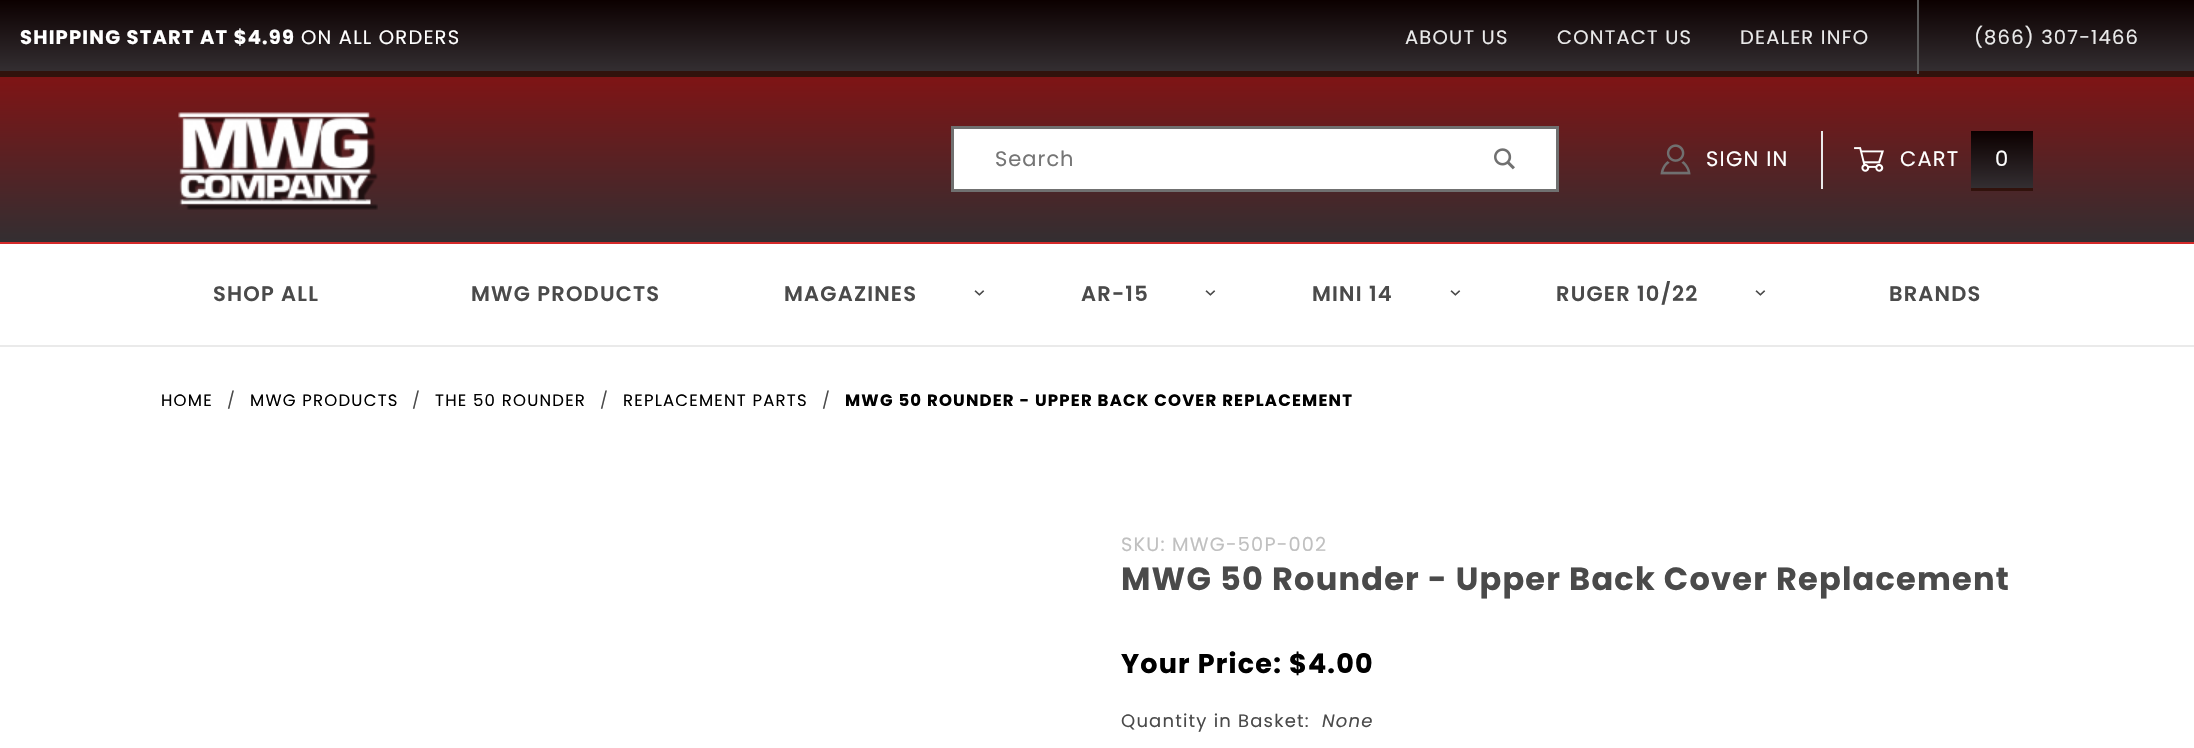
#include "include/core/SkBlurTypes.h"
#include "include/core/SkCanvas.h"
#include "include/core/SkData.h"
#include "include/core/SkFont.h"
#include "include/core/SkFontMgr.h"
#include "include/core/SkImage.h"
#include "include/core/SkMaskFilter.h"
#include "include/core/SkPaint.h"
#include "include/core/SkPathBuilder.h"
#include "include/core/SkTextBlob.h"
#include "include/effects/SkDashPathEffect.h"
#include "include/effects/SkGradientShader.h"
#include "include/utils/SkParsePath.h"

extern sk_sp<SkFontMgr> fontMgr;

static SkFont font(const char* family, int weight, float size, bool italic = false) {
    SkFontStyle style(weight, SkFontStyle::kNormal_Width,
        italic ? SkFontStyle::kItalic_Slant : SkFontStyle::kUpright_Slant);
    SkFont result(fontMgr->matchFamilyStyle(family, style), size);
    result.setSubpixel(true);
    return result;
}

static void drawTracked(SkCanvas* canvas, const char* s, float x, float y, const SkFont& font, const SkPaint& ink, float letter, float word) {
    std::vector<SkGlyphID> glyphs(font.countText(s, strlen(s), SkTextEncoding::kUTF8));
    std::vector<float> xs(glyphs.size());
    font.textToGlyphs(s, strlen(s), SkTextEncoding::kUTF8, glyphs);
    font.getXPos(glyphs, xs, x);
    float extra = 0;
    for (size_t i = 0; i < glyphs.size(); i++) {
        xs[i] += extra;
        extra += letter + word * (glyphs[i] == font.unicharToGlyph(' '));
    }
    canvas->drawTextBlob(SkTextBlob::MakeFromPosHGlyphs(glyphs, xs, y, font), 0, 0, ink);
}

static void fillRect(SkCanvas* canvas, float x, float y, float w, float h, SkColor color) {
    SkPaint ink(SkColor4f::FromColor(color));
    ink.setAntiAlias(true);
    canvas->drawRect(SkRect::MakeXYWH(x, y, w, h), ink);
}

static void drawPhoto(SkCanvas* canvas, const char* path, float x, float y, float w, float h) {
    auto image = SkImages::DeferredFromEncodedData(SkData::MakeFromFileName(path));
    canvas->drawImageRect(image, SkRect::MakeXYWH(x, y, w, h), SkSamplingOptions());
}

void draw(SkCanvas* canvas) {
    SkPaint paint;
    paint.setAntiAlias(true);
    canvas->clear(0xFFFFFFFF);
    {
        const SkColor colors[] = {0xFFA20808, 0xFF332E31};
        const float stops[] = {0, 1};
        const SkPoint ends[] = {{1097, 0}, {1097, 242}};
        paint.setShader(SkGradientShader::MakeLinear(ends, colors, stops, 2, SkTileMode::kClamp));
        paint.setAlpha(255);
    }
    canvas->drawRect(SkRect::MakeXYWH(0, 77, 2194, 165), paint);
    fillRect(canvas, 0, 242, 2194, 2, 0xFFD42A2A);
    fillRect(canvas, 0, 71, 2194, 6, 0xFF31120C);
    {
        const SkColor colors[] = {0xFF0C0000, 0xFF332E31};
        const float stops[] = {0, 1};
        const SkPoint ends[] = {{1097, 0}, {1097, 71}};
        paint.setShader(SkGradientShader::MakeLinear(ends, colors, stops, 2, SkTileMode::kClamp));
        paint.setAlpha(255);
    }
    canvas->drawRect(SkRect::MakeXYWH(0, 0, 2194, 71), paint);
    SkFont font1 = font("Poppins", 700, 19.5f);
    paint.setShader(nullptr);
    paint.setColor(0xFFFFFFFF);
    drawTracked(canvas, "SHIPPING START AT $4.99", 20, 44, font1, paint, 1.2f, 0);
    SkFont font2 = font("Poppins", 400, 19.5f);
    drawTracked(canvas, "ON ALL ORDERS", 301, 44, font2, paint, 1.2f, 0);
    paint.setColor(0xFFEAEAEA);
    drawTracked(canvas, "ABOUT US", 1405, 44, font2, paint, 1.2f, 0);
    drawTracked(canvas, "CONTACT US", 1557, 44, font2, paint, 1.2f, 0);
    drawTracked(canvas, "DEALER INFO", 1740, 44, font2, paint, 1.2f, 0);
    fillRect(canvas, 1917, 0, 2, 74, 0xFF5A5A5A);
    drawTracked(canvas, "(866) 307-1466", 1974, 44, font2, paint, 1.2f, 0);
    drawPhoto(canvas, "assets/img1.png", 178, 112, 200, 98);
    paint.setStroke(true);
    paint.setStrokeWidth(3);
    paint.setColor(0xFF707070);
    canvas->drawRect(SkRect::MakeXYWH(952.5f, 127.5f, 605, 63), paint);
    fillRect(canvas, 954, 129, 602, 60, 0xFFFFFFFF);
    SkFont font3 = font("Poppins", 400, 21);
    paint.setStroke(false);
    paint.setColor(0xFF757575);
    drawTracked(canvas, "Search", 995, 166, font3, paint, 1, 0);
    drawPhoto(canvas, "assets/img2.png", 1494, 148, 21, 22);
    fillRect(canvas, 1821, 131, 2, 58, 0xFFEAEAEA);
    drawPhoto(canvas, "assets/img3.png", 1660, 144, 31, 31);
    paint.setColor(0xFFFFFFFF);
    drawTracked(canvas, "SIGN IN", 1706, 166, font3, paint, 1.2f, 0);
    drawPhoto(canvas, "assets/img4.png", 1854, 147, 30, 25);
    drawTracked(canvas, "CART", 1900, 166, font3, paint, 1.2f, 0);
    {
        const SkColor colors[] = {0xFF0C0000, 0xFF332E31};
        const float stops[] = {0, 1};
        const SkPoint ends[] = {{2002, 131}, {2002, 188}};
        paint.setShader(SkGradientShader::MakeLinear(ends, colors, stops, 2, SkTileMode::kClamp));
        paint.setAlpha(255);
    }
    canvas->drawRect(SkRect::MakeXYWH(1971, 131, 62, 57), paint);
    paint.setShader(nullptr);
    paint.setColor(0xFFFFFFFF);
    drawTracked(canvas, "0", 1995, 166, font3, paint, 1.2f, 0);
    fillRect(canvas, 1971, 188, 62, 3, 0xFF31120C);
    fillRect(canvas, 0, 345, 2194, 2, 0xFFEAEAEA);
    SkFont font4 = font("Poppins", 600, 21);
    paint.setColor(0xFF4A4A4A);
    drawTracked(canvas, "SHOP ALL", 213, 301, font4, paint, 1.2f, 0);
    drawTracked(canvas, "MWG PRODUCTS", 471, 301, font4, paint, 1.2f, 0);
    drawTracked(canvas, "MAGAZINES", 784, 301, font4, paint, 1.2f, 0);
    SkFont font5 = font("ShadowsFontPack", 400, 10);
    canvas->save();
    canvas->rotate(90, 975, 288);
    drawTracked(canvas, "3", 975, 288, font5, paint, 1.2f, 0);
    canvas->restore();
    drawTracked(canvas, "AR-15", 1081, 301, font4, paint, 1.2f, 0);
    canvas->save();
    canvas->rotate(90, 1206, 288);
    drawTracked(canvas, "3", 1206, 288, font5, paint, 1.2f, 0);
    canvas->restore();
    drawTracked(canvas, "MINI 14", 1312, 301, font4, paint, 1.2f, 0);
    canvas->save();
    canvas->rotate(90, 1451, 288);
    drawTracked(canvas, "3", 1451, 288, font5, paint, 1.2f, 0);
    canvas->restore();
    drawTracked(canvas, "RUGER 10/22", 1556, 301, font4, paint, 1.2f, 0);
    canvas->save();
    canvas->rotate(90, 1756, 288);
    drawTracked(canvas, "3", 1756, 288, font5, paint, 1.2f, 0);
    canvas->restore();
    drawTracked(canvas, "BRANDS", 1889, 301, font4, paint, 1.2f, 0);
    SkFont font6 = font("Poppins", 400, 16.5f);
    paint.setColor(0xFF000000);
    drawTracked(canvas, "HOME", 161, 406, font6, paint, 1.2f, 0);
    paint.setColor(0xFF4A4A4A);
    drawTracked(canvas, "/", 227, 406, font6, paint, 1.2f, 0);
    paint.setColor(0xFF000000);
    drawTracked(canvas, "MWG PRODUCTS", 250, 406, font6, paint, 1.2f, 0);
    paint.setColor(0xFF4A4A4A);
    drawTracked(canvas, "/", 412, 406, font6, paint, 1.2f, 0);
    paint.setColor(0xFF000000);
    drawTracked(canvas, "THE 50 ROUNDER", 435, 406, font6, paint, 1.2f, 0);
    paint.setColor(0xFF4A4A4A);
    drawTracked(canvas, "/", 600, 406, font6, paint, 1.2f, 0);
    paint.setColor(0xFF000000);
    drawTracked(canvas, "REPLACEMENT PARTS", 623, 406, font6, paint, 1.2f, 0);
    paint.setColor(0xFF4A4A4A);
    drawTracked(canvas, "/", 822, 406, font6, paint, 1.2f, 0);
    SkFont font7 = font("Poppins", 700, 16.5f);
    paint.setColor(0xFF000000);
    drawTracked(canvas, "MWG 50 ROUNDER - UPPER BACK COVER REPLACEMENT", 845, 406, font7, paint, 1.2f, 0);
    SkFont font8 = font("Poppins", 400, 19.25f);
    paint.setColor(0xFFC0C0C0);
    drawTracked(canvas, "SKU: MWG-50P-002", 1121, 551, font8, paint, 1.2f, 0);
    SkFont font9 = font("Poppins", 700, 32);
    paint.setColor(0xFF4A4A4A);
    drawTracked(canvas, "MWG 50 Rounder - Upper Back Cover Replacement", 1121, 590, font9, paint, 1.2f, 0);
    SkFont font10 = font("Poppins", 700, 27);
    paint.setColor(0xFF000000);
    drawTracked(canvas, "Your Price: $4.00", 1121, 673, font10, paint, 1.2f, 0);
    SkFont font11 = font("Poppins", 400, 18);
    paint.setColor(0xFF4A4A4A);
    drawTracked(canvas, "Quantity in Basket:", 1121, 727, font11, paint, 1.2f, 0);
    SkFont font12 = font("Poppins", 400, 18, true);
    drawTracked(canvas, "None", 1322, 727, font12, paint, 1.2f, 0);
}
